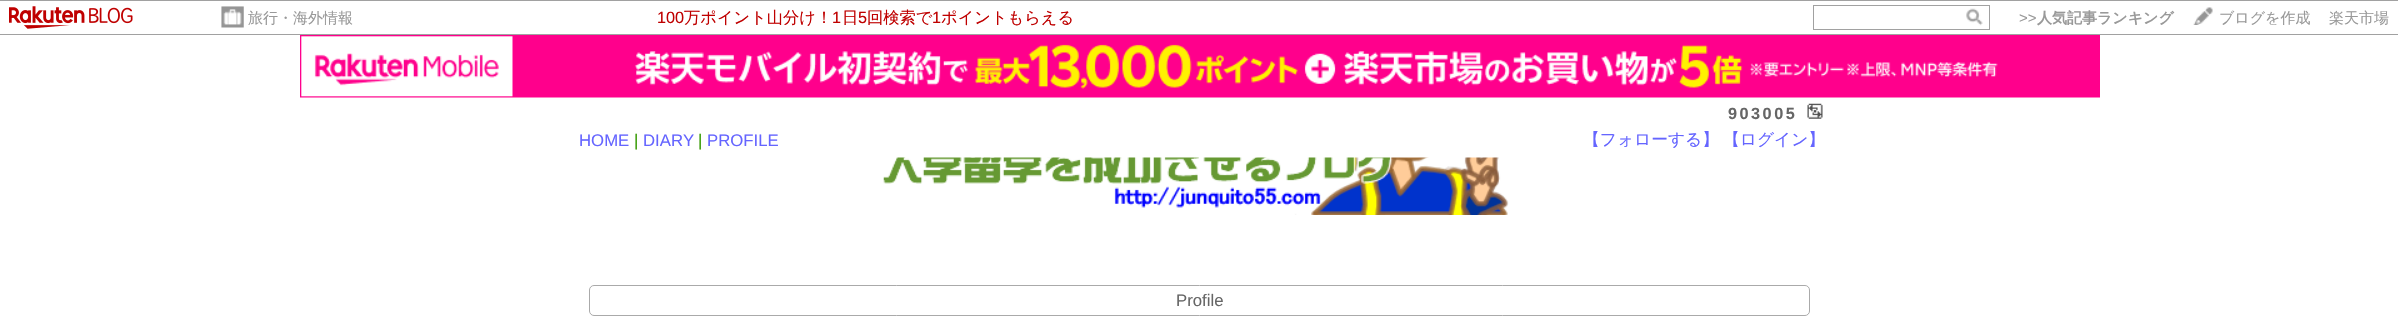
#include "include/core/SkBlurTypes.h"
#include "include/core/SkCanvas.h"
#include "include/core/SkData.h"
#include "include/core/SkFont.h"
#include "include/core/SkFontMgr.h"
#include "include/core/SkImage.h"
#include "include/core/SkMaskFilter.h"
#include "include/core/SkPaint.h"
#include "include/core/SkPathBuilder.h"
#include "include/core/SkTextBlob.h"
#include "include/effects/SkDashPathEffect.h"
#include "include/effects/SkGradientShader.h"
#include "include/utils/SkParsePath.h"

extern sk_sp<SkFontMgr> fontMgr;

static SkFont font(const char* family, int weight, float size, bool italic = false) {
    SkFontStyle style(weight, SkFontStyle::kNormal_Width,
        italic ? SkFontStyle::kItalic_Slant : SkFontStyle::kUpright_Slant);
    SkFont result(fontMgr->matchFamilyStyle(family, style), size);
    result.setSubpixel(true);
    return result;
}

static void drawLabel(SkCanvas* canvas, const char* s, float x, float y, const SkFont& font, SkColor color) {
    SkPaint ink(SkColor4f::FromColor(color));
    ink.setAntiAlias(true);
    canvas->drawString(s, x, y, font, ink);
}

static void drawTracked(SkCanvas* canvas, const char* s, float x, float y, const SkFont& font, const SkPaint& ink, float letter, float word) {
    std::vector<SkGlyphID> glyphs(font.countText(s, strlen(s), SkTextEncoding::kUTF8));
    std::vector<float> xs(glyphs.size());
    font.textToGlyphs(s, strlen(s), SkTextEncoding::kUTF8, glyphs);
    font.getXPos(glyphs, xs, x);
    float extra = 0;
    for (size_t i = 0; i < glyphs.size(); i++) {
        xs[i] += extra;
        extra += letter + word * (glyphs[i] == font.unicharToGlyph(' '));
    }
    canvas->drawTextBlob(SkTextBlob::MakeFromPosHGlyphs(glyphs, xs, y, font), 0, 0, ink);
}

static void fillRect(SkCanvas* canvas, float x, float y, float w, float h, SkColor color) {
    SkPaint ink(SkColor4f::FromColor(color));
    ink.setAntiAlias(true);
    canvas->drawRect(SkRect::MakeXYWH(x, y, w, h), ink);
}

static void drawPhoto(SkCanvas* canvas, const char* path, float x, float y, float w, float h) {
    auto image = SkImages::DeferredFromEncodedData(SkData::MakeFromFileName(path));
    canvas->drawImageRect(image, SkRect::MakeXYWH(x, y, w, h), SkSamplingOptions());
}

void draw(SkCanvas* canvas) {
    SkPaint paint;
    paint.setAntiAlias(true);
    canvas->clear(0xFFFFFFFF);
    fillRect(canvas, 0, 0, 2398, 1, 0xFFA1A1A1);
    fillRect(canvas, 0, 34, 2398, 1, 0xFFA1A1A1);
    drawPhoto(canvas, "assets/img1.png", 9, 6, 124, 23);
    drawPhoto(canvas, "assets/img2.png", 221, 6, 23, 22);
    SkFont font1 = font("WenQuanYi Zen Hei", 500, 15);
    drawLabel(canvas, "旅行・海外情報", 248, 23, font1, 0xFF999999);
    SkFont font2 = font("Liberation Sans", 400, 16.25f);
    drawLabel(canvas, "100", 657, 23, font2, 0xFFBF0000);
    SkFont font3 = font("WenQuanYi Zen Hei", 500, 16.25f);
    drawLabel(canvas, "万ポイント山分け！", 684, 23, font3, 0xFFBF0000);
    drawLabel(canvas, "1", 832, 23, font2, 0xFFBF0000);
    drawLabel(canvas, "日", 842, 23, font3, 0xFFBF0000);
    drawLabel(canvas, "5", 858, 23, font2, 0xFFBF0000);
    drawLabel(canvas, "回検索で", 867, 23, font3, 0xFFBF0000);
    drawLabel(canvas, "1", 932, 23, font2, 0xFFBF0000);
    drawLabel(canvas, "ポイントもらえる", 941, 23, font3, 0xFFBF0000);
    paint.setStroke(true);
    paint.setStrokeWidth(1);
    paint.setColor(0xFFA1A1A1);
    canvas->drawRect(SkRect::MakeXYWH(1813.5f, 5.5f, 176, 24), paint);
    drawPhoto(canvas, "assets/img3.png", 1966, 8, 17, 18);
    SkFont font4 = font("Liberation Sans", 400, 15);
    drawLabel(canvas, ">>", 2019, 23, font4, 0xFF999999);
    SkFont font5 = font("WenQuanYi Zen Hei", 700, 15);
    drawLabel(canvas, "人気記事ランキング", 2037, 23, font5, 0xFF999999);
    drawPhoto(canvas, "assets/img4.png", 2193, 7, 20, 18);
    canvas->save();
    canvas->clipRect(SkRect::MakeXYWH(2019, 5, 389, 20));
    drawLabel(canvas, "ブログを作成", 2219, 23, font1, 0xFF999999);
    canvas->restore();
    drawLabel(canvas, "楽天市場", 2329, 23, font1, 0xFF999999);
    drawPhoto(canvas, "assets/img5.png", 300, 35, 1800, 63);
    SkFont font6 = font("Liberation Sans", 700, 16.25f);
    paint.setStroke(false);
    paint.setColor(0xFF666666);
    drawTracked(canvas, "903005", 1728, 119, font6, paint, 2.5f, 0);
    drawPhoto(canvas, "assets/img6.png", 1807, 103, 16, 16);
    SkFont font7 = font("Liberation Sans", 400, 16.75f);
    drawLabel(canvas, "HOME", 579, 146, font7, 0xFF6565FF);
    drawLabel(canvas, "|", 634, 146, font7, 0xFF339900);
    drawLabel(canvas, "DIARY", 643, 146, font7, 0xFF6565FF);
    drawLabel(canvas, "|", 698, 146, font7, 0xFF339900);
    drawLabel(canvas, "PROFILE", 707, 146, font7, 0xFF6565FF);
    SkFont font8 = font("WenQuanYi Zen Hei", 500, 16.75f);
    drawLabel(canvas, "【フォローする】", 1583, 145, font8, 0xFF6565FF);
    drawLabel(canvas, "【ログイン】", 1723, 145, font8, 0xFF6565FF);
    drawPhoto(canvas, "assets/img7.png", 883, 157, 626, 58);
    paint.setStroke(true);
    paint.setColor(0xFFAAAAAA);
    canvas->drawRoundRect(SkRect::MakeXYWH(589.5f, 285.5f, 1220, 30), 4.5f, 4.5f, paint);
    drawLabel(canvas, "Profile", 1176, 306, font7, 0xFF666666);
}
